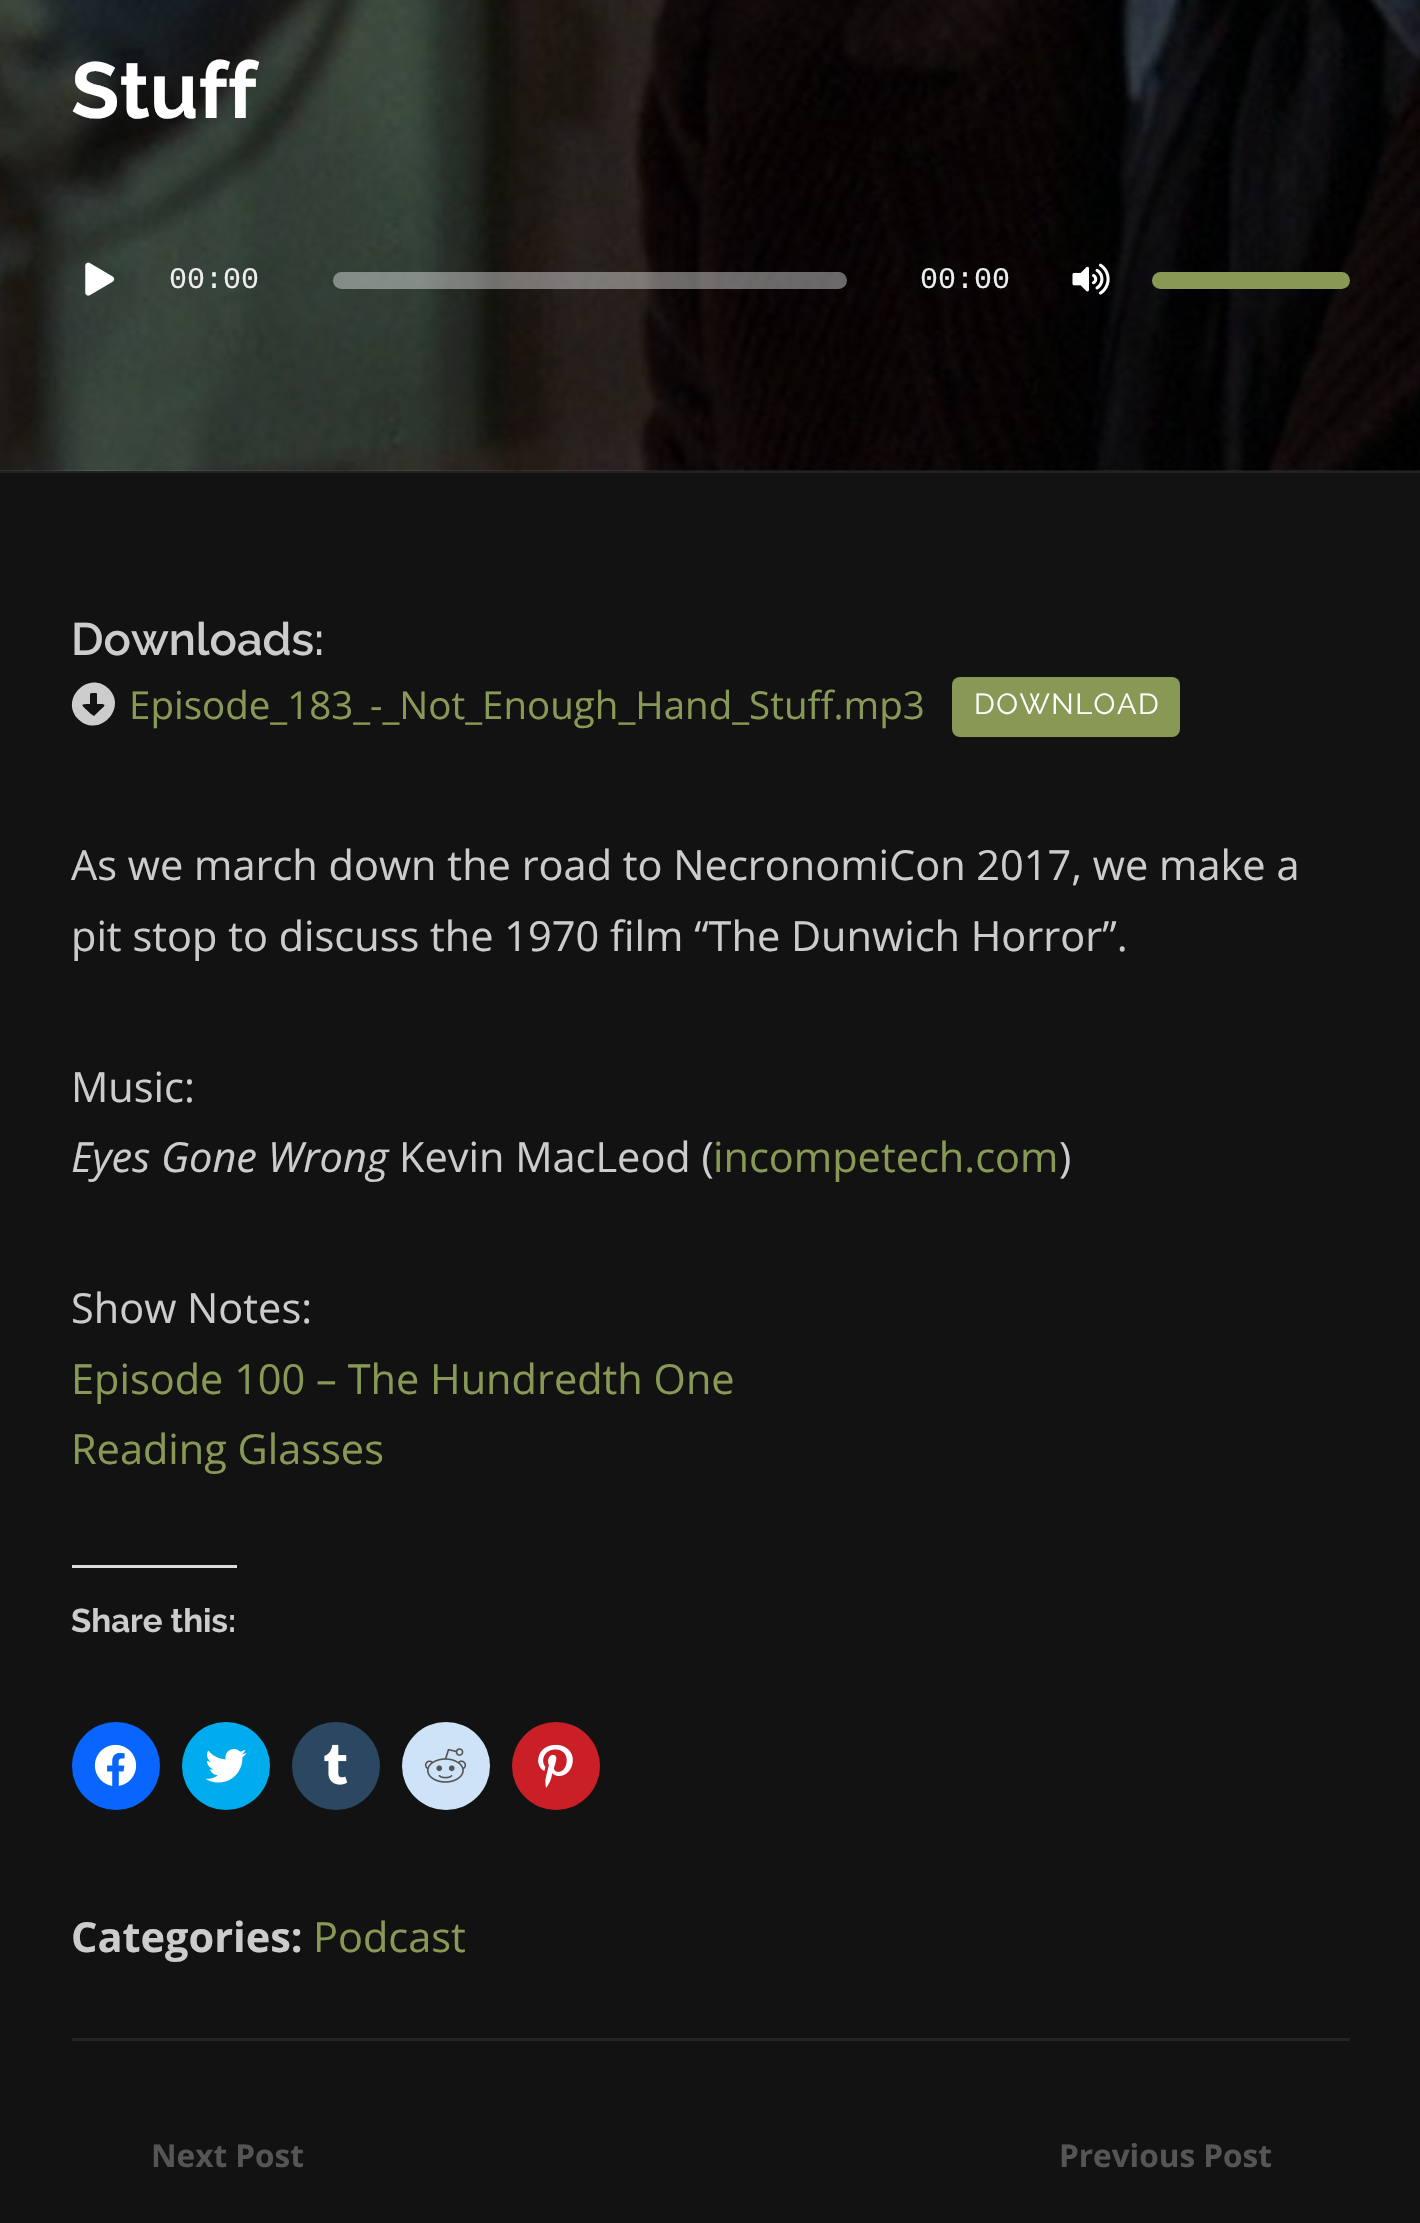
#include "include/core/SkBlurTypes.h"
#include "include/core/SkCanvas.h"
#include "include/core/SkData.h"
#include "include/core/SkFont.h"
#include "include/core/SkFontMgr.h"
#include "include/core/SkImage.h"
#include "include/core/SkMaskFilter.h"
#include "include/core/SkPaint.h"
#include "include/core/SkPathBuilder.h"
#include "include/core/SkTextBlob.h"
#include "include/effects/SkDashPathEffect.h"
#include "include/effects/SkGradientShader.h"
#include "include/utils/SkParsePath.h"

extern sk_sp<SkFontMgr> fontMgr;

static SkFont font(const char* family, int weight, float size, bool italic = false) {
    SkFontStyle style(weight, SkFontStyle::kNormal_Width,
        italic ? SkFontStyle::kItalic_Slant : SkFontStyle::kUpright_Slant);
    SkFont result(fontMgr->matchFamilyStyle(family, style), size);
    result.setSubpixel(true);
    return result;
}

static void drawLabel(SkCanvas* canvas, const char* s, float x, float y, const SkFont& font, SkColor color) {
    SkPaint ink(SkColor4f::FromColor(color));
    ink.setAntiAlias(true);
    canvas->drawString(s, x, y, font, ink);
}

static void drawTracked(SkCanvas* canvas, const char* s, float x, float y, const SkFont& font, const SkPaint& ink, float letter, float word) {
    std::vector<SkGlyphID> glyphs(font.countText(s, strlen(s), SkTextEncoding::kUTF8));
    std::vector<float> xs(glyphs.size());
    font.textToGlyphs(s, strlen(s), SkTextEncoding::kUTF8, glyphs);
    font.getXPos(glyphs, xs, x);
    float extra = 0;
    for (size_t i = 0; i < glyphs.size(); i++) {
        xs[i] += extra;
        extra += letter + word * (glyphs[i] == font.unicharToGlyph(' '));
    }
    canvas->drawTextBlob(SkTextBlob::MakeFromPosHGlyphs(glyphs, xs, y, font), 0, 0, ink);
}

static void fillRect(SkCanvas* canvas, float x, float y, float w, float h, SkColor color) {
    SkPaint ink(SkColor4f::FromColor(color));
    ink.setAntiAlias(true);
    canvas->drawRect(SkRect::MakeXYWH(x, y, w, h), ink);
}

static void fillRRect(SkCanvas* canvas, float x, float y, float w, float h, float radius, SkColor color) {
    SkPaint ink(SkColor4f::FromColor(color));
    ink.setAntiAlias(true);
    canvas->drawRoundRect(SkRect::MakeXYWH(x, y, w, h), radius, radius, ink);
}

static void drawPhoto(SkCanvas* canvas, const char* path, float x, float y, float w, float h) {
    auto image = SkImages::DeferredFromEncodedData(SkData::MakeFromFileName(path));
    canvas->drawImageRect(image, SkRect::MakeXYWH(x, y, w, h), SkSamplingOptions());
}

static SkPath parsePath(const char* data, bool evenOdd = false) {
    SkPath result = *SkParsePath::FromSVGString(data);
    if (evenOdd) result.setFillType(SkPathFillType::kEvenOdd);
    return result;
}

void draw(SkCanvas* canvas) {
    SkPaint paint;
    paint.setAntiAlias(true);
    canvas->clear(0xFF121212);
    fillRect(canvas, 0, 470, 1420, 3, 0xFF222222);
    drawPhoto(canvas, "assets/img1.png", 0, 0, 1420, 471);
    SkFont font1 = font("Raleway", 700, 79);
    drawLabel(canvas, "Stuff", 71, 118, font1, 0xFFFFFFFF);
    drawPhoto(canvas, "assets/img2.png", 85, 262, 30, 34);
    SkFont font2 = font("Liberation Mono", 400, 30);
    drawLabel(canvas, "00:00", 169, 288, font2, 0xFFEEEEEE);
    fillRRect(canvas, 333, 272, 514, 17, 8.5f, 0x66FFFFFF);
    drawLabel(canvas, "00:00", 920, 288, font2, 0xFFEEEEEE);
    drawPhoto(canvas, "assets/img3.png", 1072, 263, 38, 32);
    fillRRect(canvas, 1152, 272, 198, 17, 8.5f, 0xFF889955);
    SkFont font3 = font("Raleway", 600, 45.5f);
    drawLabel(canvas, "Downloads:", 71, 655, font3, 0xFFCCCCCC);
    paint.setColor(0xFFCCCCCC);
    canvas->drawPath(parsePath("M109 689C128 709 98 739 78 719C59 699 89 669 109 689ZM90 694V704C78 704 82 705 91 714L94 716L96 714C105 705 109 704 97 704V696C97 692 97 693 93 693C92 693 90 693 90 694Z"), paint);
    SkFont font4 = font("Open Sans", 400, 38.5f);
    drawLabel(canvas, "Episode_183_-_Not_Enough_Hand_Stuff.mp3", 129, 719, font4, 0xFF889955);
    fillRRect(canvas, 952, 677, 228, 60, 8, 0xFF889955);
    SkFont font5 = font("Raleway", 400, 29);
    paint.setColor(0xFFFFFFFF);
    drawTracked(canvas, "DOWNLOAD", 974, 714, font5, paint, 1.5f, 0);
    SkFont font6 = font("Open Sans", 400, 41.5f);
    drawLabel(canvas, "As we march down the road to NecronomiCon 2017, we make a", 71, 880, font6, 0xFFCCCCCC);
    drawLabel(canvas, "pit stop to discuss the 1970 film “The Dunwich Horror”.", 71, 951, font6, 0xFFCCCCCC);
    drawLabel(canvas, "Music:", 71, 1102, font6, 0xFFCCCCCC);
    SkFont font7 = font("Open Sans", 400, 41.5f, true);
    drawLabel(canvas, "Eyes Gone Wrong", 71, 1172, font7, 0xFFCCCCCC);
    drawLabel(canvas, "Kevin MacLeod (", 399, 1172, font6, 0xFFCCCCCC);
    drawLabel(canvas, "incompetech.com", 713, 1172, font6, 0xFF889955);
    drawLabel(canvas, ")", 1059, 1172, font6, 0xFFCCCCCC);
    drawLabel(canvas, "Show Notes:", 71, 1323, font6, 0xFFCCCCCC);
    drawLabel(canvas, "Episode 100 – The Hundredth One", 71, 1394, font6, 0xFF889955);
    drawLabel(canvas, "Reading Glasses", 71, 1464, font6, 0xFF889955);
    fillRect(canvas, 72, 1565, 165, 3, 0xFFDCDCDE);
    SkFont font8 = font("Raleway", 700, 33);
    drawLabel(canvas, "Share this:", 71, 1632, font8, 0xFFCCCCCC);
    paint.setColor(0xFF0866FF);
    canvas->drawCircle(116, 1766, 44, paint);
    drawPhoto(canvas, "assets/img4.png", 94, 1744, 43, 42);
    paint.setColor(0xFF00ACEE);
    canvas->drawCircle(226, 1766, 44, paint);
    drawPhoto(canvas, "assets/img5.png", 205, 1749, 42, 34);
    paint.setColor(0xFF2C4762);
    canvas->drawCircle(336, 1766, 44, paint);
    drawPhoto(canvas, "assets/img6.png", 324, 1744, 24, 41);
    paint.setColor(0xFFCEE3F8);
    canvas->drawCircle(446, 1766, 44, paint);
    drawPhoto(canvas, "assets/img7.png", 424, 1748, 43, 35);
    paint.setColor(0xFFCA1F27);
    canvas->drawCircle(556, 1766, 44, paint);
    drawPhoto(canvas, "assets/img8.png", 538, 1744, 35, 44);
    SkFont font9 = font("Open Sans", 700, 41.5f);
    drawLabel(canvas, "Categories:", 71, 1952, font9, 0xFFCCCCCC);
    drawLabel(canvas, "Podcast", 313, 1952, font6, 0xFF889955);
    fillRect(canvas, 72, 2038, 1278, 3, 0xFF252525);
    SkFont font10 = font("Open Sans", 700, 31.5f);
    drawLabel(canvas, "Next Post", 151, 2167, font10, 0xFF555555);
    drawLabel(canvas, "Previous Post", 1059, 2167, font10, 0xFF555555);
}
